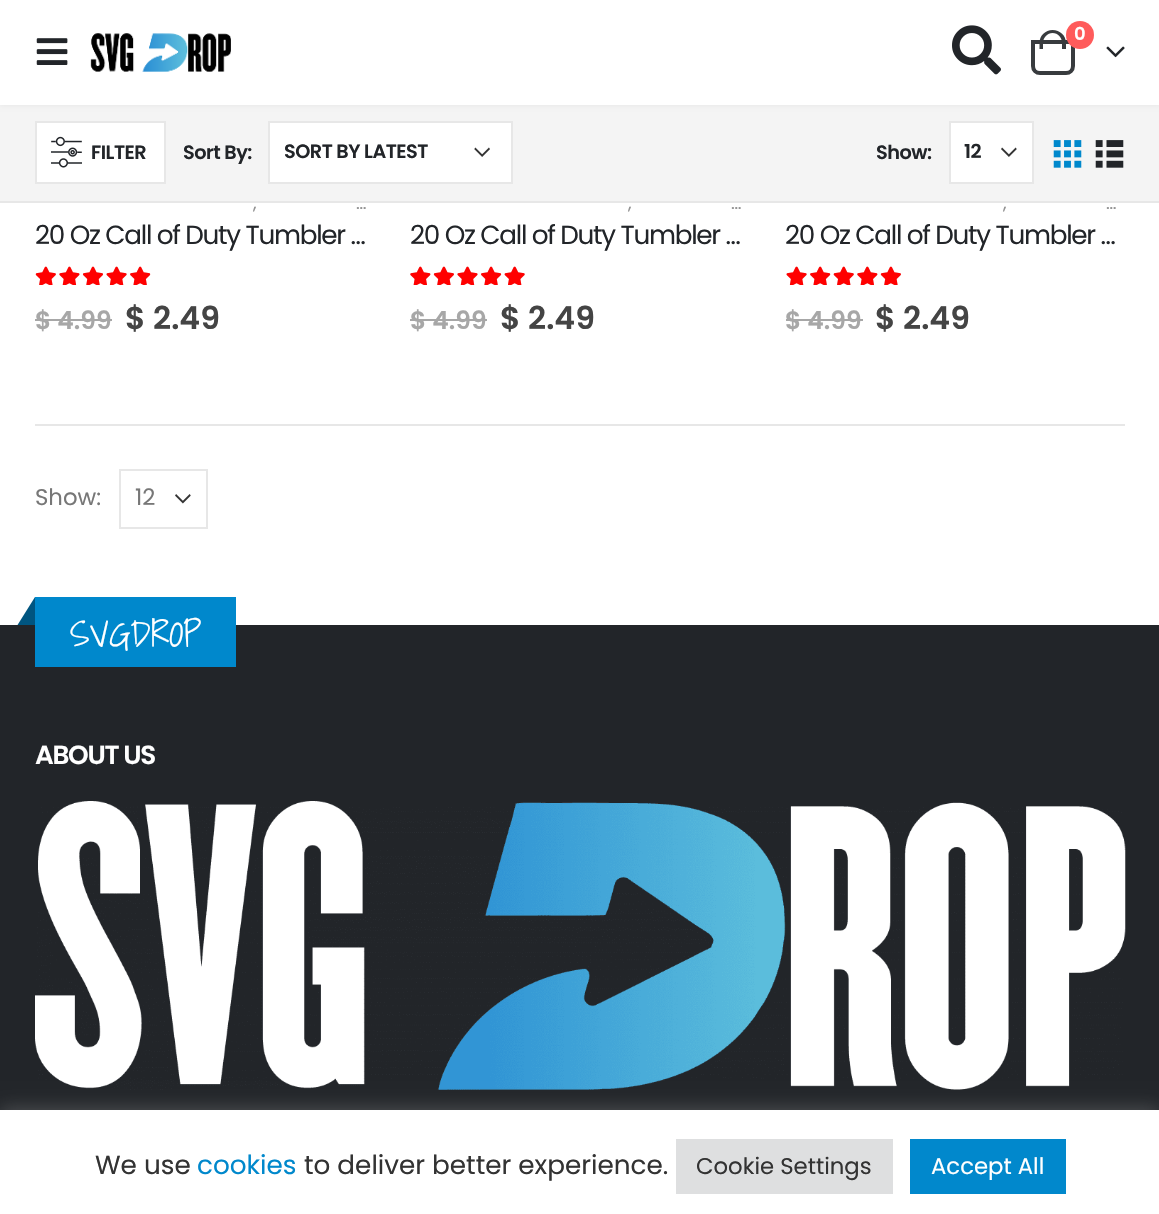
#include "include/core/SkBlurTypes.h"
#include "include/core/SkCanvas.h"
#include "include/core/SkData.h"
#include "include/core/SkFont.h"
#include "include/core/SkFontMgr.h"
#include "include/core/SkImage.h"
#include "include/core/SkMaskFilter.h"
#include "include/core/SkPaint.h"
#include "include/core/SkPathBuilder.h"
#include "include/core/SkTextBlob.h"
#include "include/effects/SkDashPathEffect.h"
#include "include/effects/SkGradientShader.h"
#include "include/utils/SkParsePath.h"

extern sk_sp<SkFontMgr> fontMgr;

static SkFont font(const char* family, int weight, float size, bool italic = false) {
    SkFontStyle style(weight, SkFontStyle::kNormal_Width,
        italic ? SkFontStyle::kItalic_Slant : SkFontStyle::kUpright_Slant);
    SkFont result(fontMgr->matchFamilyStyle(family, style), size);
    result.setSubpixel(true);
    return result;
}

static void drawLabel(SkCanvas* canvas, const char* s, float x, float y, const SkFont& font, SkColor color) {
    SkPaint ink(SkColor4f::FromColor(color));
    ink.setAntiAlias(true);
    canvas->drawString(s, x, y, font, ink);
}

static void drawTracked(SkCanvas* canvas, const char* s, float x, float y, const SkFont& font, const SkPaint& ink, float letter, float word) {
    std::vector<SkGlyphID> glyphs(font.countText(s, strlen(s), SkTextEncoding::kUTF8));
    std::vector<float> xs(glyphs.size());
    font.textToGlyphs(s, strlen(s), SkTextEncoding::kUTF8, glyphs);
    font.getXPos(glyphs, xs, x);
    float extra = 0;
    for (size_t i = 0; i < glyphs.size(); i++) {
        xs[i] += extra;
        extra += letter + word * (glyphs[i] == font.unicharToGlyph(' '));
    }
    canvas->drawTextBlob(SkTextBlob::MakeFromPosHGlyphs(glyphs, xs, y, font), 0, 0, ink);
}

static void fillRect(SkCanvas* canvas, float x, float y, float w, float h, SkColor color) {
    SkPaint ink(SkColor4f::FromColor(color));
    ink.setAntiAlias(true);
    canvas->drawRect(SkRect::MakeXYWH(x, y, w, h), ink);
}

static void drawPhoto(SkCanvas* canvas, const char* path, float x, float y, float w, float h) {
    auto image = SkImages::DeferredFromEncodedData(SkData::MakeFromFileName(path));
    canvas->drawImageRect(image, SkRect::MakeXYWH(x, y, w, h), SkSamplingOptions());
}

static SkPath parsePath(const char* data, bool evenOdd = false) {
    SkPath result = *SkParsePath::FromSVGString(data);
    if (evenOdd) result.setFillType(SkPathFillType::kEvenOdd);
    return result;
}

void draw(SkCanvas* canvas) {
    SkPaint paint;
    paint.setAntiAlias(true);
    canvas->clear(0xFFFFFFFF);
    fillRect(canvas, 0, 105, 1159, 96, 0xFFF4F4F4);
    paint.setColor(0x0F000000);
    paint.setMaskFilter(SkMaskFilter::MakeBlur(kNormal_SkBlurStyle, 2.5f));
    canvas->drawRect(SkRect::MakeXYWH(0, 0, 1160, 105), paint);
    paint.setMaskFilter(nullptr);
    fillRect(canvas, 0, 0, 1159, 105, 0xFFFFFFFF);
    drawPhoto(canvas, "assets/img1.png", 36, 38, 32, 27);
    drawPhoto(canvas, "assets/img2.png", 90, 33, 141, 39);
    drawPhoto(canvas, "assets/img3.png", 952, 25, 49, 50);
    paint.setStroke(true);
    paint.setStrokeWidth(4);
    paint.setColor(0xFF383B3E);
    canvas->drawPath(parsePath("M1033 42H1073V66C1073 70 1070 73 1066 73H1040C1036 73 1033 70 1033 66Z"), paint);
    paint.setStroke(false);
    canvas->drawPath(parsePath("M1052.5 30C1060 30 1066 35.5 1066 43V49H1039.5V43C1039.5 35.5 1045.5 30 1052.5 30ZM1052.5 33C1058 33 1062 37.5 1062 43V49H1043V43C1043 37.5 1047.5 33 1052.5 33Z", true), paint);
    paint.setColor(0xFFFF5B5B);
    canvas->drawCircle(1080, 35, 14, paint);
    SkFont font1 = font("Poppins", 600, 18);
    drawLabel(canvas, "0", 1074, 40, font1, 0xFFFFFFFF);
    drawPhoto(canvas, "assets/img4.png", 1106, 46, 19, 12);
    fillRect(canvas, 0, 201, 1159, 2, 0xFFE7E7E7);
    paint.setColor(0xFFFFFFFF);
    canvas->drawRect(SkRect::MakeXYWH(36, 122, 129, 61), paint);
    paint.setStroke(true);
    paint.setStrokeWidth(2);
    paint.setColor(0xFFE7E7E7);
    canvas->drawRect(SkRect::MakeXYWH(36, 122, 129, 61), paint);
    drawPhoto(canvas, "assets/img5.png", 51, 136, 31, 32);
    SkFont font2 = font("Poppins", 600, 19.25f);
    paint.setStroke(false);
    paint.setColor(0xFF222529);
    drawTracked(canvas, "FILTER", 91, 159, font2, paint, -0.5f, 0);
    drawTracked(canvas, "Sort By:", 183, 159, font2, paint, -0.5f, 0);
    fillRect(canvas, 270, 123, 241, 59, 0xFFFFFFFF);
    drawPhoto(canvas, "assets/img6.png", 474, 147, 16, 10);
    paint.setStroke(true);
    paint.setColor(0xFFE7E7E7);
    canvas->drawRect(SkRect::MakeXYWH(269, 122, 243, 61), paint);
    paint.setStroke(false);
    paint.setColor(0xFF222529);
    drawTracked(canvas, "SORT BY LATEST", 284, 158, font2, paint, -0.5f, 0);
    drawTracked(canvas, "Show:", 876, 159, font2, paint, -0.5f, 0);
    fillRect(canvas, 951, 123, 81, 59, 0xFFFFFFFF);
    drawPhoto(canvas, "assets/img7.png", 1001, 147, 16, 10);
    paint.setStroke(true);
    paint.setColor(0xFFE7E7E7);
    canvas->drawRect(SkRect::MakeXYWH(950, 122, 83, 61), paint);
    paint.setStroke(false);
    paint.setColor(0xFF222529);
    drawTracked(canvas, "12", 964, 158, font2, paint, -0.5f, 0);
    drawPhoto(canvas, "assets/img8.png", 1053, 140, 29, 28);
    drawPhoto(canvas, "assets/img9.png", 1095, 140, 29, 28);
    SkFont font3 = font("Poppins", 400, 18);
    drawLabel(canvas, ",", 253, 209, font3, 0xFF929292);
    drawLabel(canvas, "…", 356, 209, font3, 0xFF929292);
    SkFont font4 = font("Poppins", 400, 26.25f);
    drawTracked(canvas, "20 Oz Call of Duty Tumbler …", 35, 244, font4, paint, -1.3f, 0);
    drawPhoto(canvas, "assets/img10.png", 35, 266, 115, 19);
    drawPhoto(canvas, "assets/img11.png", 35, 266, 116, 19);
    SkFont font5 = font("Poppins", 600, 25);
    drawLabel(canvas, "$ 4.99", 35, 329, font5, 0xFFA7A7A7);
    fillRect(canvas, 35, 319, 77, 2, 0xFFA7A7A7);
    SkFont font6 = font("Poppins", 600, 31.5f);
    drawLabel(canvas, "$ 2.49", 125, 329, font6, 0xFF444444);
    drawLabel(canvas, ",", 628, 209, font3, 0xFF929292);
    drawLabel(canvas, "…", 731, 209, font3, 0xFF929292);
    drawTracked(canvas, "20 Oz Call of Duty Tumbler …", 410, 244, font4, paint, -1.3f, 0);
    drawPhoto(canvas, "assets/img12.png", 410, 266, 115, 19);
    drawPhoto(canvas, "assets/img13.png", 410, 266, 115, 19);
    drawLabel(canvas, "$ 4.99", 410, 329, font5, 0xFFA7A7A7);
    fillRect(canvas, 410, 319, 77, 2, 0xFFA7A7A7);
    drawLabel(canvas, "$ 2.49", 500, 329, font6, 0xFF444444);
    drawLabel(canvas, ",", 1003, 209, font3, 0xFF929292);
    drawLabel(canvas, "…", 1106, 209, font3, 0xFF929292);
    drawTracked(canvas, "20 Oz Call of Duty Tumbler …", 785, 244, font4, paint, -1.3f, 0);
    drawPhoto(canvas, "assets/img14.png", 786, 266, 115, 19);
    drawPhoto(canvas, "assets/img15.png", 786, 266, 115, 19);
    drawLabel(canvas, "$ 4.99", 785, 329, font5, 0xFFA7A7A7);
    fillRect(canvas, 786, 319, 77, 2, 0xFFA7A7A7);
    drawLabel(canvas, "$ 2.49", 875, 329, font6, 0xFF444444);
    fillRect(canvas, 35, 424, 1090, 2, 0xFFE7E7E7);
    SkFont font7 = font("Poppins", 400, 22.75f);
    drawLabel(canvas, "Show:", 35, 505, font7, 0xFF777777);
    drawPhoto(canvas, "assets/img16.png", 175, 494, 16, 10);
    paint.setStroke(true);
    paint.setColor(0xFFE7E7E7);
    canvas->drawRect(SkRect::MakeXYWH(120, 470, 87, 58), paint);
    drawLabel(canvas, "12", 135, 505, font7, 0xFF777777);
    fillRect(canvas, 0, 625, 1159, 485, 0xFF222529);
    fillRect(canvas, 35, 597, 201, 70, 0xFF0088CC);
    paint.setStroke(false);
    paint.setColor(0xFF005580);
    canvas->drawPath(parsePath("M35 597V625H17.5Z"), paint);
    SkFont font8 = font("Shadows Into Light", 300, 36.5f);
    drawLabel(canvas, "SVGDROP", 70, 647, font8, 0xFFFFFFFF);
    SkFont font9 = font("Poppins", 600, 26.25f);
    paint.setColor(0xFFFFFFFF);
    drawTracked(canvas, "ABOUT US", 35, 764, font9, paint, -1.3f, 0);
    drawPhoto(canvas, "assets/img17.png", 35, 801, 1091, 289);
    paint.setColor(0x4DACABAB);
    paint.setMaskFilter(SkMaskFilter::MakeBlur(kNormal_SkBlurStyle, 9));
    canvas->drawRect(SkRect::MakeXYWH(0, 1108, 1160, 105), paint);
    paint.setMaskFilter(nullptr);
    fillRect(canvas, 0, 1110, 1159, 104, 0xFFFFFFFF);
    drawLabel(canvas, "We use", 95, 1174, font4, 0xFF333333);
    drawLabel(canvas, "cookies", 197, 1174, font4, 0xFF0088CC);
    drawLabel(canvas, "to deliver better experience.", 304, 1174, font4, 0xFF333333);
    fillRect(canvas, 676, 1139, 217, 55, 0xFFDEDFE0);
    drawLabel(canvas, "Cookie Settings", 696, 1174, font7, 0xFF333333);
    fillRect(canvas, 910, 1139, 156, 55, 0xFF0188CC);
    drawLabel(canvas, "Accept All", 931, 1174, font7, 0xFFFFFFFF);
}
